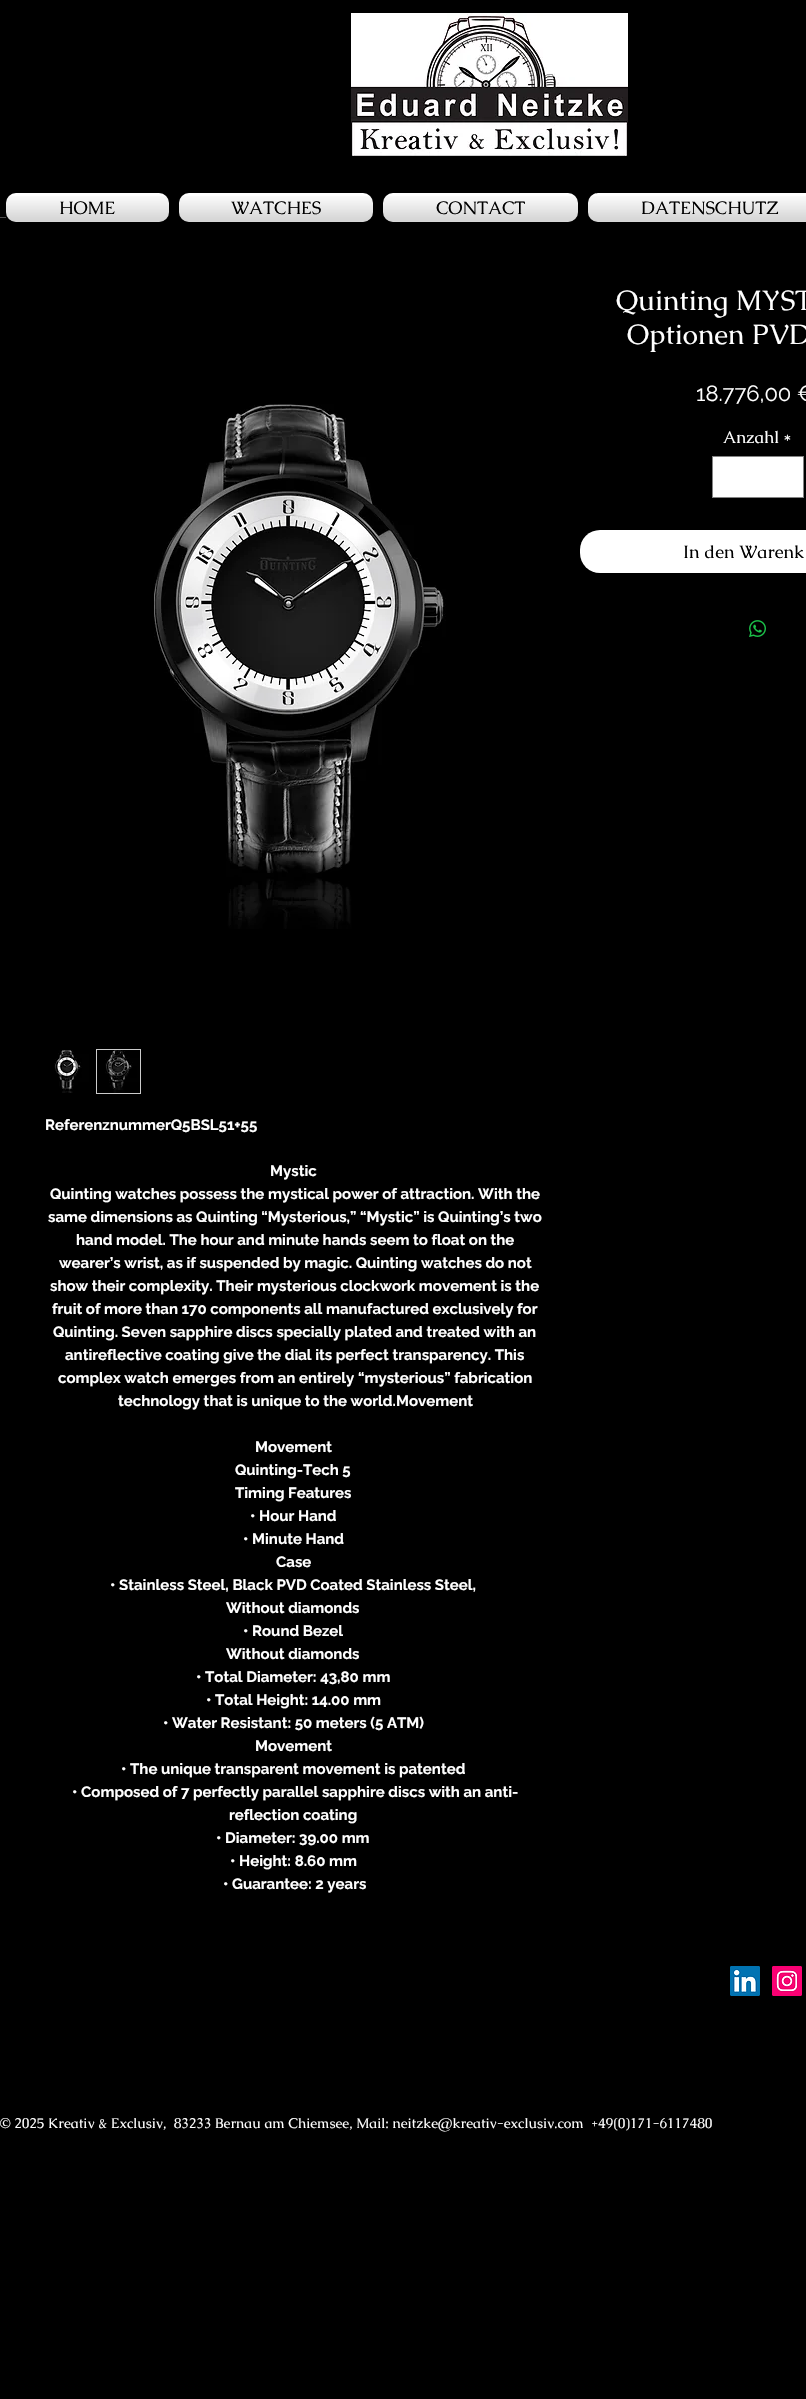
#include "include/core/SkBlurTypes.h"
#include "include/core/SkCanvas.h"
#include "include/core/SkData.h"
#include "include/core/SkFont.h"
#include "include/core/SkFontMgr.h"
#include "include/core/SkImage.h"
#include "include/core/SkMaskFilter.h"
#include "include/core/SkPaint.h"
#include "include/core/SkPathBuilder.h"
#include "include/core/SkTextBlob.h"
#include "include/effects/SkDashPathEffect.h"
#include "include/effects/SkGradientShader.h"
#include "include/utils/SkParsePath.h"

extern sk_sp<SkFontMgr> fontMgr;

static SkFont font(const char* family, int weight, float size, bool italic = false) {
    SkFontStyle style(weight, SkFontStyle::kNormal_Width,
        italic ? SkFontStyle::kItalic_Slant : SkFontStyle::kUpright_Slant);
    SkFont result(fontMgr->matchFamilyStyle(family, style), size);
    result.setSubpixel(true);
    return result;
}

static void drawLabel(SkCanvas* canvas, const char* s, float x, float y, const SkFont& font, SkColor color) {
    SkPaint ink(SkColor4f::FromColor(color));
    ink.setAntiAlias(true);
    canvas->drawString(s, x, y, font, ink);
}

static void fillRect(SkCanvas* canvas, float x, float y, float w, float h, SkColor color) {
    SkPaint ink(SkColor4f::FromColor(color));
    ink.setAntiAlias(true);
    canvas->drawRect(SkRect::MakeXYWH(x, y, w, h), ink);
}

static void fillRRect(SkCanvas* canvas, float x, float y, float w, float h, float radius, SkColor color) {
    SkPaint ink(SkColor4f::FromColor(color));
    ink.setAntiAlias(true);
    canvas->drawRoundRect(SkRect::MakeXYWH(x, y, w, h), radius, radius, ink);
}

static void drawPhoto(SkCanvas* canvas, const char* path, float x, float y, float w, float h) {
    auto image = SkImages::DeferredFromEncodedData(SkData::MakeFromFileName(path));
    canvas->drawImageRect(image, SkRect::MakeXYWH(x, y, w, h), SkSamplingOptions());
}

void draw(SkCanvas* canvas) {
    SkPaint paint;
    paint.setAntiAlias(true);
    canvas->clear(0xFF000000);
    drawPhoto(canvas, "assets/img1.png", 351, 13, 277, 143);
    fillRRect(canvas, 6, 193, 163, 29, 10, 0xFFFFFFFF);
    drawPhoto(canvas, "assets/img2.png", 13, 193, 149, 1);
    drawPhoto(canvas, "assets/img3.png", 6, 196, 163, 26);
    SkFont font1 = font("Caudex", 400, 18);
    drawLabel(canvas, "HOME", 59, 214, font1, 0xFF000000);
    fillRRect(canvas, 179, 193, 194, 29, 10, 0xFFFFFFFF);
    drawPhoto(canvas, "assets/img4.png", 186, 193, 180, 1);
    drawPhoto(canvas, "assets/img5.png", 179, 196, 194, 26);
    drawLabel(canvas, "WATCHES", 231, 214, font1, 0xFF000000);
    fillRRect(canvas, 383, 193, 195, 29, 10, 0xFFFFFFFF);
    drawPhoto(canvas, "assets/img6.png", 390, 193, 181, 1);
    drawPhoto(canvas, "assets/img7.png", 383, 196, 195, 26);
    drawLabel(canvas, "CONTACT", 436, 214, font1, 0xFF000000);
    fillRRect(canvas, 588, 193, 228, 29, 10, 0xFFFFFFFF);
    fillRect(canvas, 595, 193, 1, 1, 0xFFAAAAAA);
    drawPhoto(canvas, "assets/img8.png", 588, 196, 218, 26);
    drawLabel(canvas, "DATENSCHUTZ", 641, 214, font1, 0xFF000000);
    fillRect(canvas, 0, 217, 6, 1, 0xFF4C4C4C);
    SkFont font2 = font("Caudex", 400, 28);
    drawLabel(canvas, "Quinting MYST", 616, 310, font2, 0xFFFFFFFF);
    drawLabel(canvas, "Optionen PVD", 627, 344, font2, 0xFFFFFFFF);
    SkFont font3 = font("Raleway", 400, 22);
    drawLabel(canvas, "18.776,00 €", 696, 401, font3, 0xFFFFFFFF);
    SkFont font4 = font("Caudex", 400, 17);
    drawLabel(canvas, "Anzahl", 723, 443, font4, 0xFFFFFFFF);
    drawLabel(canvas, "*", 783, 443, font4, 0xFFFFFFFF);
    paint.setColor(0xFFFFFFFF);
    canvas->drawRect(SkRect::MakeXYWH(712.5f, 456.5f, 91, 41), paint);
    paint.setStroke(true);
    paint.setStrokeWidth(1);
    paint.setColor(0xFF838383);
    canvas->drawRect(SkRect::MakeXYWH(712.5f, 456.5f, 91, 41), paint);
    fillRRect(canvas, 580, 530, 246, 43, 20, 0xFFFFFFFF);
    drawLabel(canvas, "In den Warenk", 683, 558, font1, 0xFF000000);
    drawPhoto(canvas, "assets/img9.png", 749, 620, 17, 17);
    drawPhoto(canvas, "assets/img10.png", 154, 404, 292, 525);
    drawPhoto(canvas, "assets/img11.png", 46, 1050, 43, 43);
    fillRect(canvas, 96, 1049, 45, 45, 0xFFCBCBCB);
    drawPhoto(canvas, "assets/img12.png", 97, 1050, 43, 43);
    SkFont font5 = font("Raleway", 700, 15);
    drawLabel(canvas, "ReferenznummerQ5BSL51+55", 45, 1130, font5, 0xFFFFFFFF);
    drawLabel(canvas, "Mystic", 270, 1176, font5, 0xFFFFFFFF);
    drawLabel(canvas, "Quinting watches possess the mystical power of attraction. With the", 50, 1199, font5, 0xFFFFFFFF);
    drawLabel(canvas, "same dimensions as Quinting “Mysterious,” “Mystic” is Quinting’s two", 48, 1222, font5, 0xFFFFFFFF);
    drawLabel(canvas, "hand model. The hour and minute hands seem to float on the", 76, 1245, font5, 0xFFFFFFFF);
    drawLabel(canvas, "wearer’s wrist, as if suspended by magic. Quinting watches do not", 59, 1268, font5, 0xFFFFFFFF);
    drawLabel(canvas, "show their complexity. Their mysterious clockwork movement is the", 50, 1291, font5, 0xFFFFFFFF);
    drawLabel(canvas, "fruit of more than 170 components all manufactured exclusively for", 52, 1314, font5, 0xFFFFFFFF);
    drawLabel(canvas, "Quinting. Seven sapphire discs specially plated and treated with an", 53, 1337, font5, 0xFFFFFFFF);
    drawLabel(canvas, "antireflective coating give the dial its perfect transparency. This", 65, 1360, font5, 0xFFFFFFFF);
    drawLabel(canvas, "complex watch emerges from an entirely “mysterious” fabrication", 58, 1383, font5, 0xFFFFFFFF);
    drawLabel(canvas, "technology that is unique to the world.Movement", 118, 1406, font5, 0xFFFFFFFF);
    drawLabel(canvas, "Movement", 255, 1452, font5, 0xFFFFFFFF);
    drawLabel(canvas, "Quinting-Tech 5", 235, 1475, font5, 0xFFFFFFFF);
    drawLabel(canvas, "Timing Features", 235, 1498, font5, 0xFFFFFFFF);
    drawLabel(canvas, "• Hour Hand", 250, 1521, font5, 0xFFFFFFFF);
    drawLabel(canvas, "• Minute Hand", 243, 1544, font5, 0xFFFFFFFF);
    drawLabel(canvas, "Case", 276, 1567, font5, 0xFFFFFFFF);
    drawLabel(canvas, "• Stainless Steel, Black PVD Coated Stainless Steel,", 110, 1590, font5, 0xFFFFFFFF);
    drawLabel(canvas, "Without diamonds", 226, 1613, font5, 0xFFFFFFFF);
    drawLabel(canvas, "• Round Bezel", 243, 1636, font5, 0xFFFFFFFF);
    drawLabel(canvas, "Without diamonds", 226, 1659, font5, 0xFFFFFFFF);
    drawLabel(canvas, "• Total Diameter: 43,80 mm", 196, 1682, font5, 0xFFFFFFFF);
    drawLabel(canvas, "• Total Height: 14.00 mm", 206, 1705, font5, 0xFFFFFFFF);
    drawLabel(canvas, "• Water Resistant: 50 meters (5 ATM)", 163, 1728, font5, 0xFFFFFFFF);
    drawLabel(canvas, "Movement", 255, 1751, font5, 0xFFFFFFFF);
    drawLabel(canvas, "• The unique transparent movement is patented", 121, 1774, font5, 0xFFFFFFFF);
    drawLabel(canvas, "• Composed of 7 perfectly parallel sapphire discs with an anti-", 72, 1797, font5, 0xFFFFFFFF);
    drawLabel(canvas, "reflection coating", 229, 1820, font5, 0xFFFFFFFF);
    drawLabel(canvas, "• Diameter: 39.00 mm", 216, 1843, font5, 0xFFFFFFFF);
    drawLabel(canvas, "• Height: 8.60 mm", 230, 1866, font5, 0xFFFFFFFF);
    drawLabel(canvas, "• Guarantee: 2 years", 223, 1889, font5, 0xFFFFFFFF);
    drawPhoto(canvas, "assets/img13.png", 730, 1966, 30, 30);
    drawPhoto(canvas, "assets/img14.png", 772, 1966, 30, 30);
    SkFont font6 = font("Caudex", 400, 14);
    drawLabel(canvas, "© 2025 Kreativ & Exclusiv,  83233 Bernau am Chiemsee, Mail: neitzke@kreativ-exclusiv.com  +49(0)171-6117480", 0, 2128, font6, 0xFFFFFFFF);
}
